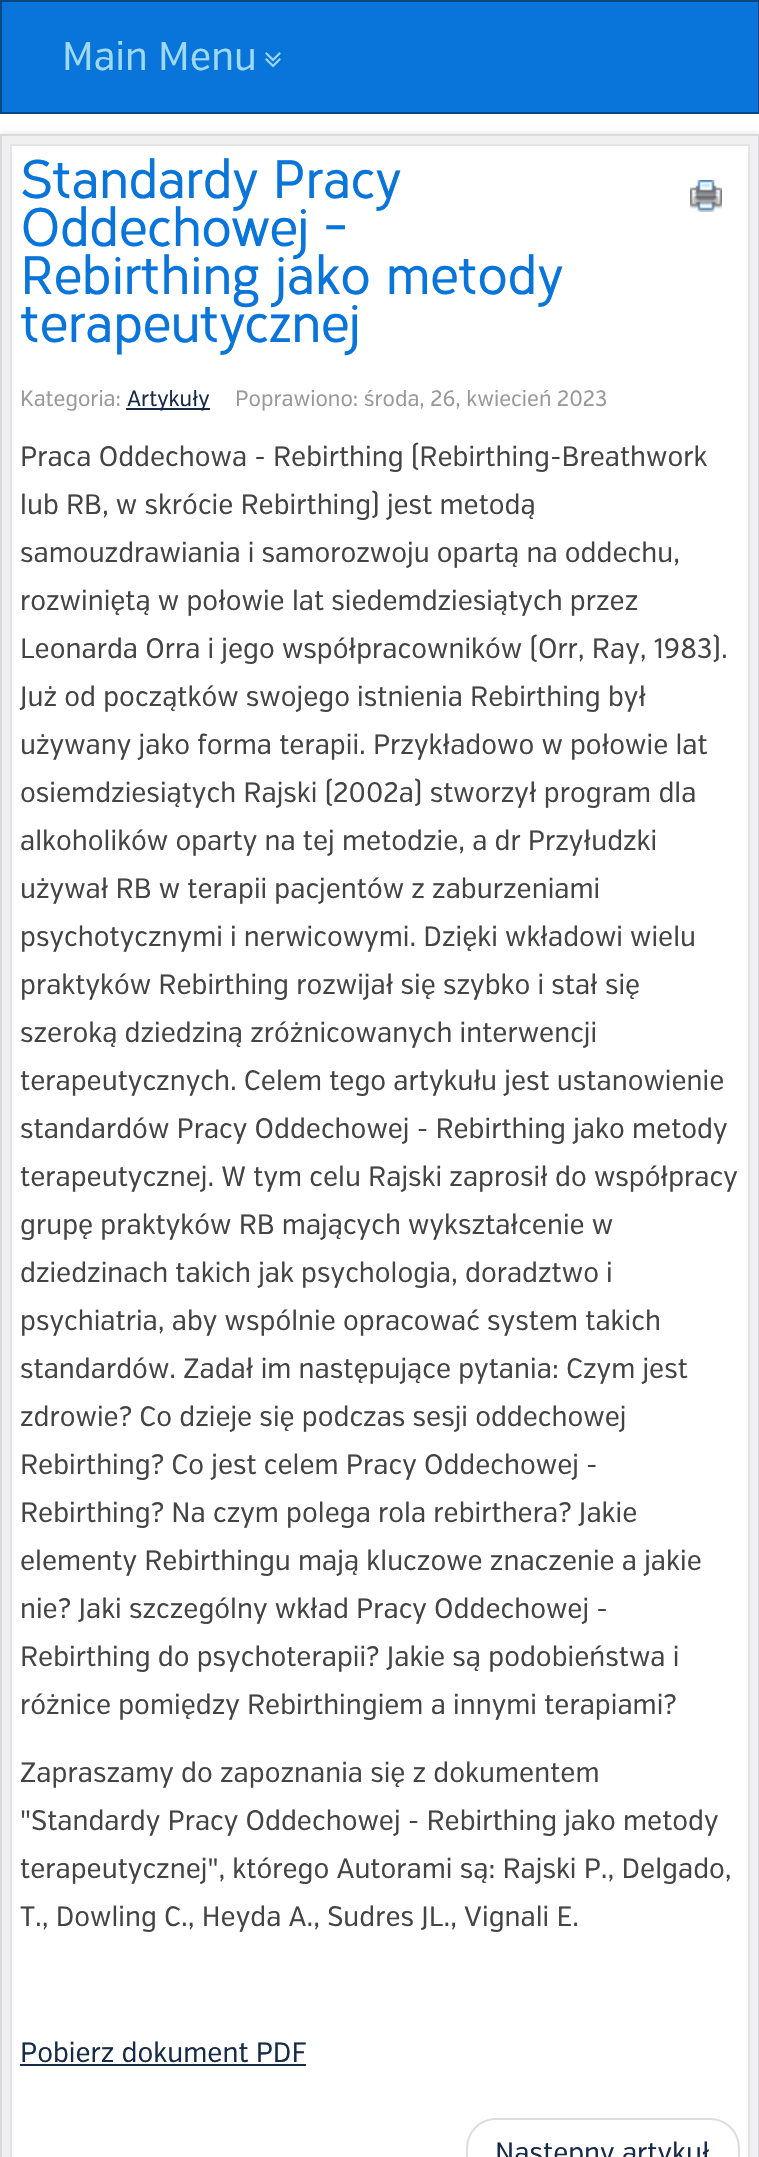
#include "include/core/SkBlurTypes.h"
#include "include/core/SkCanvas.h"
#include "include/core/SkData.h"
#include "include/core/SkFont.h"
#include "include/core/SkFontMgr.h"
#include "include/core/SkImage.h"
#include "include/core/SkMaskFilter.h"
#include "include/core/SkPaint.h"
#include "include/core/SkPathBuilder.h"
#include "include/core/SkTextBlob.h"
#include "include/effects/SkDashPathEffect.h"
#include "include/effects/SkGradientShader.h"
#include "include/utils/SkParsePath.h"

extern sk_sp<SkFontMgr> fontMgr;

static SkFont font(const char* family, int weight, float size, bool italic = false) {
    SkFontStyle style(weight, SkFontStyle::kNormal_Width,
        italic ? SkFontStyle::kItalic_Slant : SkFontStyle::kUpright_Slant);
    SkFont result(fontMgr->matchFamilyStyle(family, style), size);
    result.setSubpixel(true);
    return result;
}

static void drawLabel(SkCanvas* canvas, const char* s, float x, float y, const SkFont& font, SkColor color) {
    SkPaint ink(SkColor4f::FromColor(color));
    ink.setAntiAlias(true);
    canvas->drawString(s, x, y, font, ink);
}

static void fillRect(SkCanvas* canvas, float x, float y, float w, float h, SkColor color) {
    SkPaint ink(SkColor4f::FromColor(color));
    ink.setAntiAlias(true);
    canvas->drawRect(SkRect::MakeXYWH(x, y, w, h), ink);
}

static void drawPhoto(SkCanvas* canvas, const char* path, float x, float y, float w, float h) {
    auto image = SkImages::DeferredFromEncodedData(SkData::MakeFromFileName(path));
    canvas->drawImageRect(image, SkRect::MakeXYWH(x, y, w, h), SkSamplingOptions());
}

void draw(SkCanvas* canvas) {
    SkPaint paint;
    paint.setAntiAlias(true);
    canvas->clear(0xFFFFFFFF);
    paint.setColor(0xFF0975DA);
    canvas->drawRect(SkRect::MakeXYWH(1, 1, 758, 112), paint);
    paint.setStroke(true);
    paint.setStrokeWidth(2);
    paint.setColor(0xFF094680);
    canvas->drawRect(SkRect::MakeXYWH(1, 1, 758, 112), paint);
    SkFont font1 = font("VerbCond", 400, 40);
    drawLabel(canvas, "Main Menu", 62, 70, font1, 0xFF9ED9F4);
    drawPhoto(canvas, "assets/img1.png", 265, 52, 16, 16);
    paint.setStroke(false);
    paint.setColor(0x33000000);
    paint.setMaskFilter(SkMaskFilter::MakeBlur(kNormal_SkBlurStyle, 4));
    canvas->drawRect(SkRect::MakeXYWH(0, 136, 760, 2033), paint);
    paint.setMaskFilter(nullptr);
    paint.setColor(0xFFF0F0F2);
    canvas->drawRect(SkRect::MakeXYWH(1, 135, 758, 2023), paint);
    paint.setStroke(true);
    paint.setColor(0xFFDADADA);
    canvas->drawRect(SkRect::MakeXYWH(1, 135, 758, 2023), paint);
    paint.setStroke(false);
    paint.setColor(0xFFFFFFFF);
    canvas->drawRect(SkRect::MakeXYWH(11, 145, 738, 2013), paint);
    paint.setStroke(true);
    paint.setColor(0xFFE4E4E4);
    canvas->drawRect(SkRect::MakeXYWH(11, 145, 738, 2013), paint);
    SkFont font2 = font("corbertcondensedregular", 700, 52);
    drawLabel(canvas, "Standardy Pracy", 20, 198, font2, 0xFF0975DA);
    drawLabel(canvas, "Oddechowej -", 20, 246, font2, 0xFF0975DA);
    drawLabel(canvas, "Rebirthing jako metody", 20, 294, font2, 0xFF0975DA);
    drawLabel(canvas, "terapeutycznej", 20, 342, font2, 0xFF0975DA);
    drawPhoto(canvas, "assets/img2.png", 690, 180, 32, 32);
    SkFont font3 = font("VerbCond", 400, 22);
    drawLabel(canvas, "Kategoria:", 20, 406, font3, 0xFF999999);
    fillRect(canvas, 126, 408, 84, 2, 0xFF162B48);
    drawLabel(canvas, "Artykuły", 127, 406, font3, 0xFF162B48);
    drawLabel(canvas, "Poprawiono: środa, 26, kwiecień 2023", 235, 406, font3, 0xFF999999);
    SkFont font4 = font("VerbCond", 400, 28);
    drawLabel(canvas, "Praca Oddechowa - Rebirthing (Rebirthing-Breathwork", 20, 466, font4, 0xFF444444);
    drawLabel(canvas, "lub RB, w skrócie Rebirthing) jest metodą", 20, 514, font4, 0xFF444444);
    drawLabel(canvas, "samouzdrawiania i samorozwoju opartą na oddechu,", 20, 562, font4, 0xFF444444);
    drawLabel(canvas, "rozwiniętą w połowie lat siedemdziesiątych przez", 20, 610, font4, 0xFF444444);
    drawLabel(canvas, "Leonarda Orra i jego współpracowników (Orr, Ray, 1983).", 20, 658, font4, 0xFF444444);
    drawLabel(canvas, "Już od początków swojego istnienia Rebirthing był", 20, 706, font4, 0xFF444444);
    drawLabel(canvas, "używany jako forma terapii. Przykładowo w połowie lat", 20, 754, font4, 0xFF444444);
    drawLabel(canvas, "osiemdziesiątych Rajski (2002a) stworzył program dla", 20, 802, font4, 0xFF444444);
    drawLabel(canvas, "alkoholików oparty na tej metodzie, a dr Przyłudzki", 20, 850, font4, 0xFF444444);
    drawLabel(canvas, "używał RB w terapii pacjentów z zaburzeniami", 20, 898, font4, 0xFF444444);
    drawLabel(canvas, "psychotycznymi i nerwicowymi. Dzięki wkładowi wielu", 20, 946, font4, 0xFF444444);
    drawLabel(canvas, "praktyków Rebirthing rozwijał się szybko i stał się", 20, 994, font4, 0xFF444444);
    drawLabel(canvas, "szeroką dziedziną zróżnicowanych interwencji", 20, 1042, font4, 0xFF444444);
    drawLabel(canvas, "terapeutycznych. Celem tego artykułu jest ustanowienie", 20, 1090, font4, 0xFF444444);
    drawLabel(canvas, "standardów Pracy Oddechowej - Rebirthing jako metody", 20, 1138, font4, 0xFF444444);
    drawLabel(canvas, "terapeutycznej. W tym celu Rajski zaprosił do współpracy", 20, 1186, font4, 0xFF444444);
    drawLabel(canvas, "grupę praktyków RB mających wykształcenie w", 20, 1234, font4, 0xFF444444);
    drawLabel(canvas, "dziedzinach takich jak psychologia, doradztwo i", 20, 1282, font4, 0xFF444444);
    drawLabel(canvas, "psychiatria, aby wspólnie opracować system takich", 20, 1330, font4, 0xFF444444);
    drawLabel(canvas, "standardów. Zadał im następujące pytania: Czym jest", 20, 1378, font4, 0xFF444444);
    drawLabel(canvas, "zdrowie? Co dzieje się podczas sesji oddechowej", 20, 1426, font4, 0xFF444444);
    drawLabel(canvas, "Rebirthing? Co jest celem Pracy Oddechowej -", 20, 1474, font4, 0xFF444444);
    drawLabel(canvas, "Rebirthing? Na czym polega rola rebirthera? Jakie", 20, 1522, font4, 0xFF444444);
    drawLabel(canvas, "elementy Rebirthingu mają kluczowe znaczenie a jakie", 20, 1570, font4, 0xFF444444);
    drawLabel(canvas, "nie? Jaki szczególny wkład Pracy Oddechowej -", 20, 1618, font4, 0xFF444444);
    drawLabel(canvas, "Rebirthing do psychoterapii? Jakie są podobieństwa i", 20, 1666, font4, 0xFF444444);
    drawLabel(canvas, "różnice pomiędzy Rebirthingiem a innymi terapiami?", 20, 1714, font4, 0xFF444444);
    drawLabel(canvas, "Zapraszamy do zapoznania się z dokumentem", 20, 1782, font4, 0xFF444444);
    drawLabel(canvas, "\"Standardy Pracy Oddechowej - Rebirthing jako metody", 20, 1830, font4, 0xFF444444);
    drawLabel(canvas, "terapeutycznej\", którego Autorami są: Rajski P., Delgado,", 20, 1878, font4, 0xFF444444);
    drawLabel(canvas, "T., Dowling C., Heyda A., Sudres JL., Vignali E.", 20, 1926, font4, 0xFF444444);
    drawLabel(canvas, "Pobierz dokument PDF", 20, 2062, font4, 0xFF162B48);
    fillRect(canvas, 20, 2064, 286, 2, 0xFF162B48);
    paint.setColor(0xFFDDDDDD);
    canvas->drawRoundRect(SkRect::MakeXYWH(467, 2119, 272, 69), 29, 29, paint);
    drawLabel(canvas, "Następny artykuł", 495, 2162, font4, 0xFF162B48);
}
